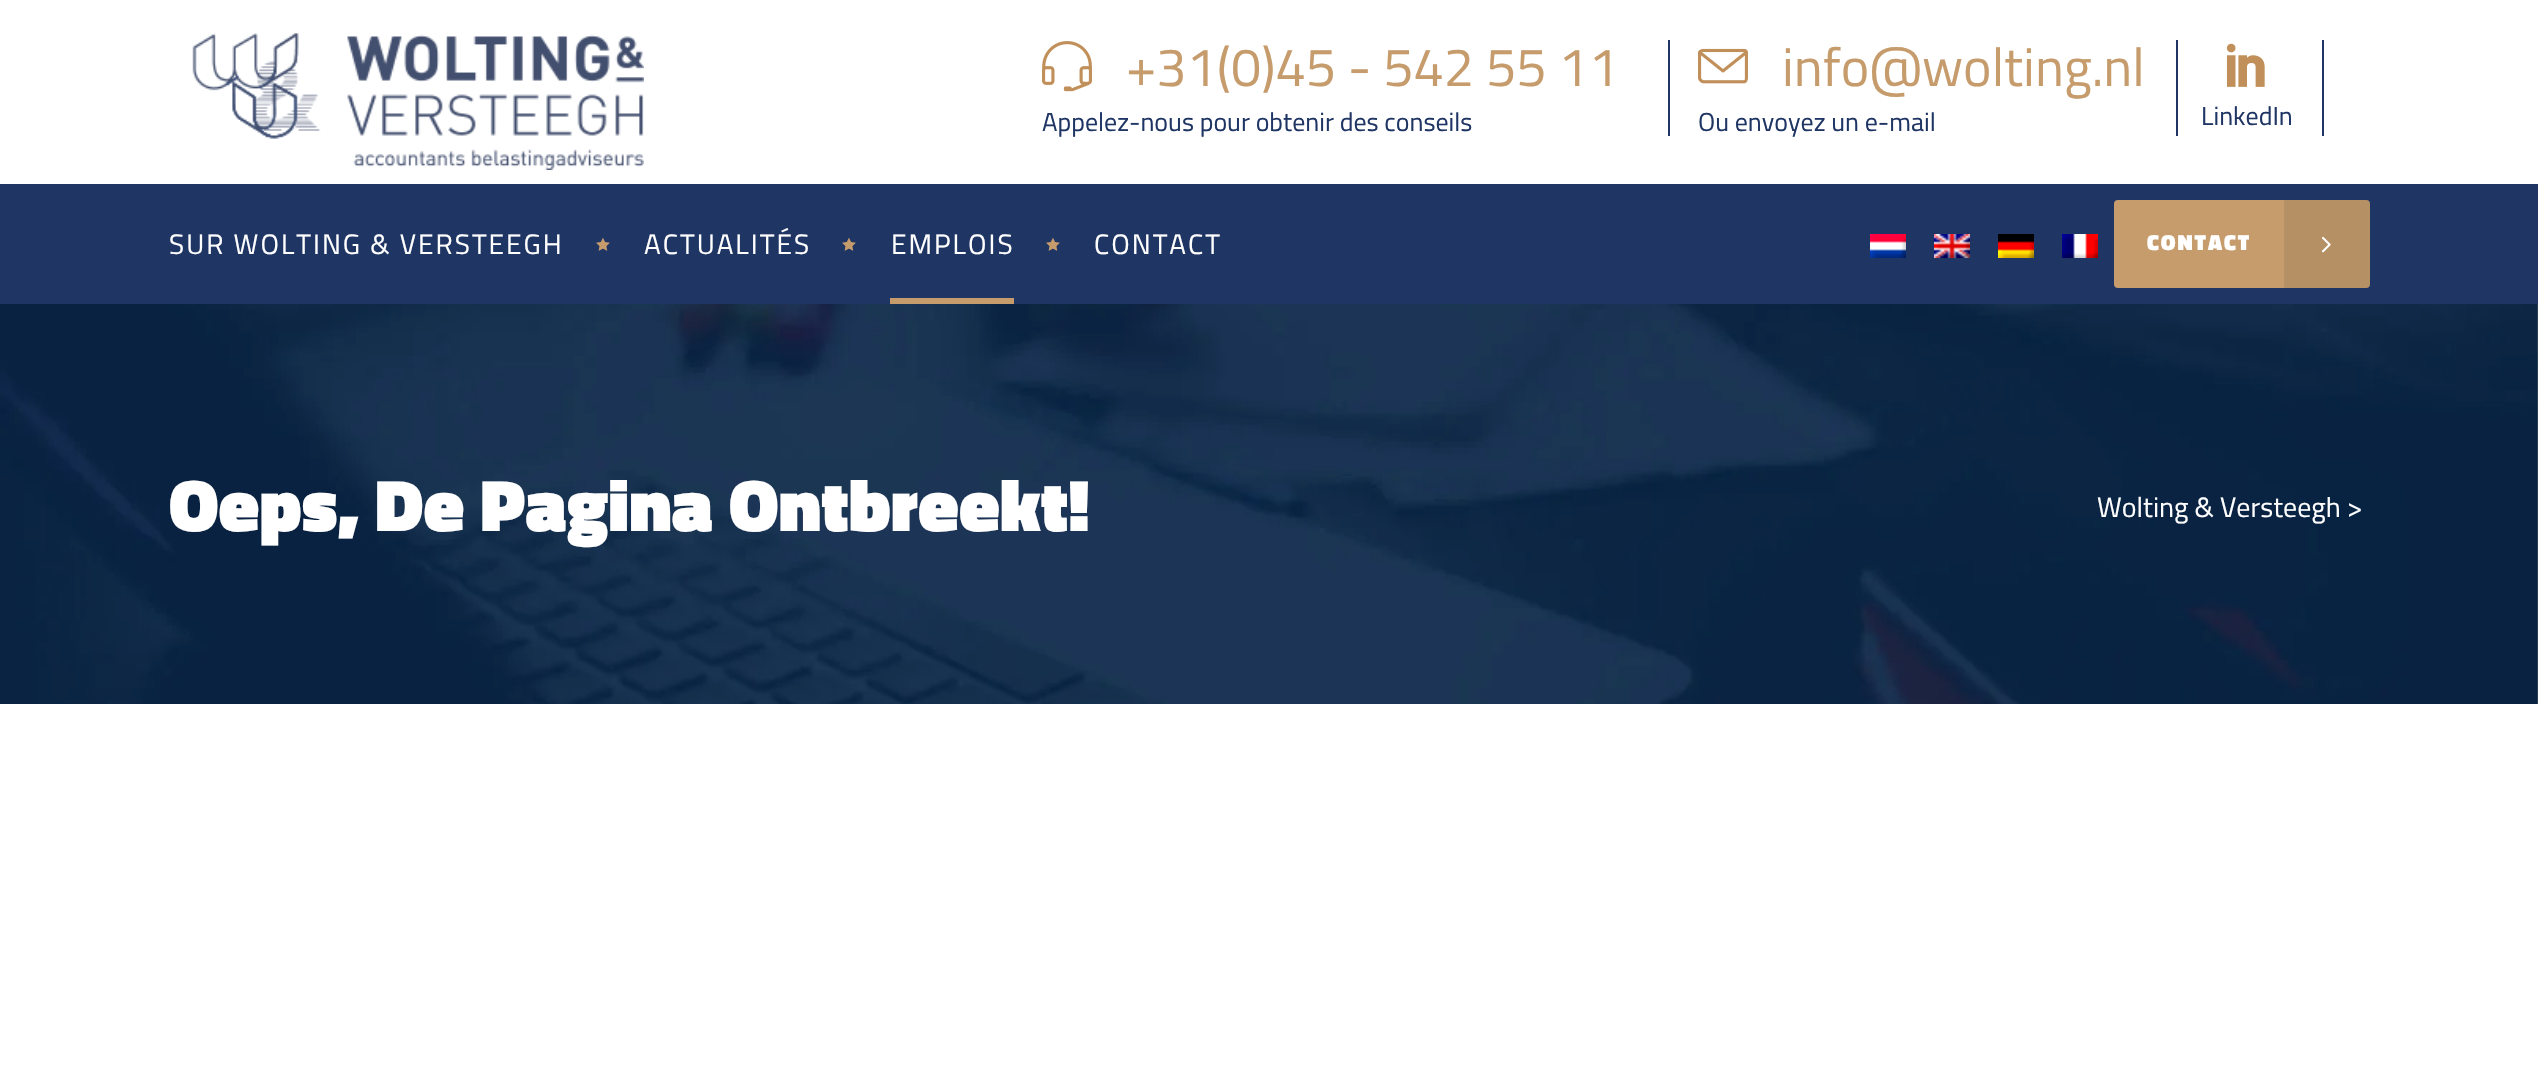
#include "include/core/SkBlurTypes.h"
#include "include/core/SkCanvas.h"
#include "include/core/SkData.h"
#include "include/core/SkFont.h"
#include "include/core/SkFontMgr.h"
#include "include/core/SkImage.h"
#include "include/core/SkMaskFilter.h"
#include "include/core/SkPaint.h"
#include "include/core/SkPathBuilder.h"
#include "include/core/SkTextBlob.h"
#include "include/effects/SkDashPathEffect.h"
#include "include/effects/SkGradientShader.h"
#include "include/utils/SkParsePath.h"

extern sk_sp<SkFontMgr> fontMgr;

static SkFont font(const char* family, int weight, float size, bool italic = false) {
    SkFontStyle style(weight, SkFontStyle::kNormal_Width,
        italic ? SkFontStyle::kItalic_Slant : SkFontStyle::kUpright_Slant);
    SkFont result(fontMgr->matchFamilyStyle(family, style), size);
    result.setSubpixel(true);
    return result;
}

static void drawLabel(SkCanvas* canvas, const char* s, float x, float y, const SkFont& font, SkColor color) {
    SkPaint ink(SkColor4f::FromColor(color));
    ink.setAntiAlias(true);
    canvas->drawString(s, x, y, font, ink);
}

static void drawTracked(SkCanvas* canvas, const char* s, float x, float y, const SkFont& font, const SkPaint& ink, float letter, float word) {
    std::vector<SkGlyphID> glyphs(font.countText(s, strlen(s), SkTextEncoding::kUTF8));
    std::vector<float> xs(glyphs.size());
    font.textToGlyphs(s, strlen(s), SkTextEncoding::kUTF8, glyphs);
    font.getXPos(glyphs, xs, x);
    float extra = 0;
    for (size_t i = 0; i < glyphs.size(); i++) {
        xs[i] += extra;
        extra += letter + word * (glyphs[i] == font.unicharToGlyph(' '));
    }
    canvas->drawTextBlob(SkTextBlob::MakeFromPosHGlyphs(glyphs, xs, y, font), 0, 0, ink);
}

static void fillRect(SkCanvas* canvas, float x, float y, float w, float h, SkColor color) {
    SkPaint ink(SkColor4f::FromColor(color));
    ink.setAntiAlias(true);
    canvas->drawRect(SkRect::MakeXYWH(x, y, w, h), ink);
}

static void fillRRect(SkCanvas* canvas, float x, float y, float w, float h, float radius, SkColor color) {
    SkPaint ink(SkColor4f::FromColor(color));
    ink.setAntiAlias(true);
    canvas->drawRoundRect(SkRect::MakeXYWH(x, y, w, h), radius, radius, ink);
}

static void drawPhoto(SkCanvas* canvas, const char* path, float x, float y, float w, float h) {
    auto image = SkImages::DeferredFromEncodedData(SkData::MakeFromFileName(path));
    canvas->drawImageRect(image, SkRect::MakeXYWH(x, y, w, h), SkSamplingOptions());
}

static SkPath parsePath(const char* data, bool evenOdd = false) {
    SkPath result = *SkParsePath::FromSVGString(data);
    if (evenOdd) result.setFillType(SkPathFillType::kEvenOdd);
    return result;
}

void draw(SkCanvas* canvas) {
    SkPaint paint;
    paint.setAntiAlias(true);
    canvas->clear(0xFFFFFFFF);
    drawPhoto(canvas, "assets/img1.png", 192, 33, 452, 137);
    drawPhoto(canvas, "assets/img2.png", 1042, 41, 50, 51);
    SkFont font1 = font("Titillium Web", 400, 54);
    drawLabel(canvas, "+31(0)45 - 542 55 11", 1126, 86, font1, 0xFFC69C6D);
    SkFont font2 = font("Titillium Web", 400, 26);
    drawLabel(canvas, "Appelez-nous pour obtenir des conseils", 1042, 131, font2, 0xFF1F3564);
    fillRect(canvas, 1668, 40, 2, 96, 0xFF1F3564);
    drawPhoto(canvas, "assets/img3.png", 1698, 48, 50, 36);
    drawLabel(canvas, "info@wolting.nl", 1782, 86, font1, 0xFFC69C6D);
    drawLabel(canvas, "Ou envoyez un e-mail", 1698, 131, font2, 0xFF1F3564);
    fillRect(canvas, 2176, 40, 2, 96, 0xFF1F3564);
    drawPhoto(canvas, "assets/img4.png", 2226, 43, 39, 44);
    drawLabel(canvas, "LinkedIn", 2201, 125, font2, 0xFF1F3564);
    fillRect(canvas, 2322, 40, 2, 96, 0xFF1F3564);
    fillRect(canvas, 0, 184, 2538, 120, 0xFF1F3564);
    SkFont font3 = font("Titillium Web", 400, 28);
    paint.setColor(0xFFFFFFFF);
    drawTracked(canvas, "SUR WOLTING & VERSTEEGH", 169, 254, font3, paint, 2, 0);
    drawPhoto(canvas, "assets/img5.png", 596, 237, 14, 14);
    drawTracked(canvas, "ACTUALITÉS", 644, 254, font3, paint, 2, 0);
    drawPhoto(canvas, "assets/img5.png", 842, 237, 14, 14);
    drawTracked(canvas, "EMPLOIS", 891, 254, font3, paint, 2, 0);
    drawPhoto(canvas, "assets/img5.png", 1046, 237, 14, 14);
    fillRect(canvas, 890, 298, 124, 6, 0xFFC69C6D);
    drawTracked(canvas, "CONTACT", 1094, 254, font3, paint, 2, 0);
    drawPhoto(canvas, "assets/img6.png", 1870, 234, 36, 24);
    drawPhoto(canvas, "assets/img7.png", 1934, 234, 36, 24);
    drawPhoto(canvas, "assets/img8.png", 1998, 234, 36, 24);
    drawPhoto(canvas, "assets/img9.png", 2062, 234, 36, 24);
    fillRRect(canvas, 2114, 200, 256, 88, 4, 0xFFC69C6D);
    SkFont font4 = font("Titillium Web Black", 900, 22);
    drawTracked(canvas, "CONTACT", 2147, 250, font4, paint, 2, 0);
    paint.setColor(0x14000000);
    canvas->drawPath(parsePath("M2284 200H2366C2368 200 2370 202 2370 204V284C2370 286 2368 288 2366 288H2284Z"), paint);
    drawPhoto(canvas, "assets/img10.png", 2321, 236, 10, 17);
    drawPhoto(canvas, "assets/img11.png", 0, 304, 2538, 400);
    SkFont font5 = font("Titillium Web Black", 900, 74);
    drawLabel(canvas, "Oeps, De Pagina Ontbreekt!", 169, 531, font5, 0xFFFFFFFF);
    drawLabel(canvas, "Wolting & Versteegh >", 2097, 517, font3, 0xFFFFFFFF);
}
